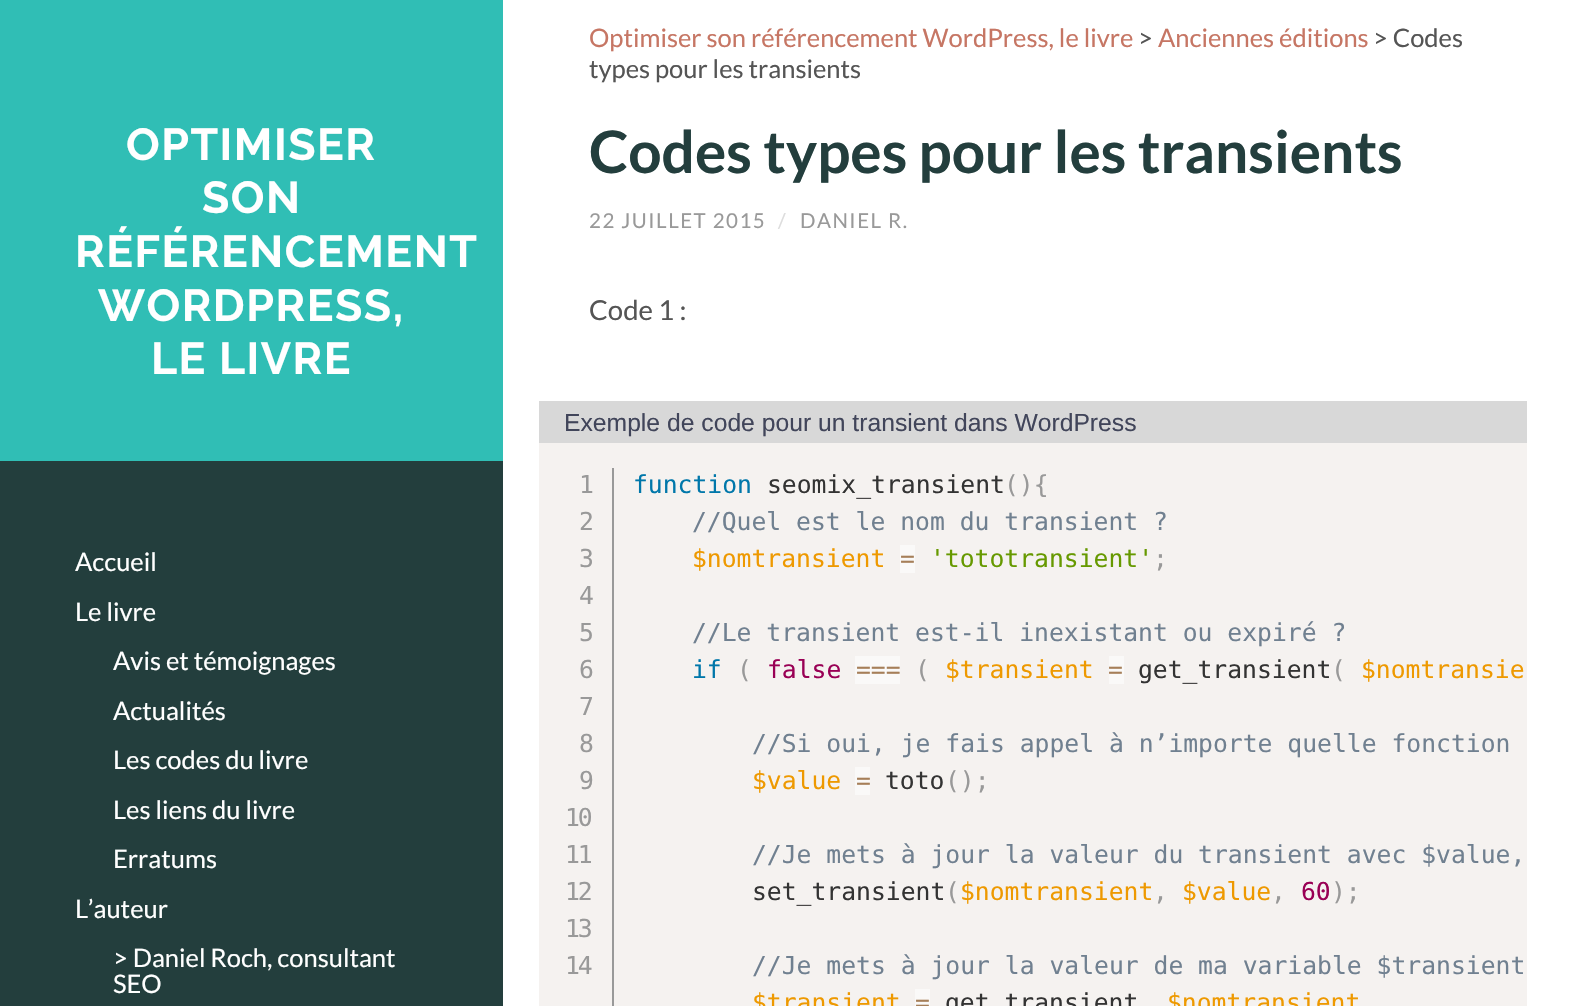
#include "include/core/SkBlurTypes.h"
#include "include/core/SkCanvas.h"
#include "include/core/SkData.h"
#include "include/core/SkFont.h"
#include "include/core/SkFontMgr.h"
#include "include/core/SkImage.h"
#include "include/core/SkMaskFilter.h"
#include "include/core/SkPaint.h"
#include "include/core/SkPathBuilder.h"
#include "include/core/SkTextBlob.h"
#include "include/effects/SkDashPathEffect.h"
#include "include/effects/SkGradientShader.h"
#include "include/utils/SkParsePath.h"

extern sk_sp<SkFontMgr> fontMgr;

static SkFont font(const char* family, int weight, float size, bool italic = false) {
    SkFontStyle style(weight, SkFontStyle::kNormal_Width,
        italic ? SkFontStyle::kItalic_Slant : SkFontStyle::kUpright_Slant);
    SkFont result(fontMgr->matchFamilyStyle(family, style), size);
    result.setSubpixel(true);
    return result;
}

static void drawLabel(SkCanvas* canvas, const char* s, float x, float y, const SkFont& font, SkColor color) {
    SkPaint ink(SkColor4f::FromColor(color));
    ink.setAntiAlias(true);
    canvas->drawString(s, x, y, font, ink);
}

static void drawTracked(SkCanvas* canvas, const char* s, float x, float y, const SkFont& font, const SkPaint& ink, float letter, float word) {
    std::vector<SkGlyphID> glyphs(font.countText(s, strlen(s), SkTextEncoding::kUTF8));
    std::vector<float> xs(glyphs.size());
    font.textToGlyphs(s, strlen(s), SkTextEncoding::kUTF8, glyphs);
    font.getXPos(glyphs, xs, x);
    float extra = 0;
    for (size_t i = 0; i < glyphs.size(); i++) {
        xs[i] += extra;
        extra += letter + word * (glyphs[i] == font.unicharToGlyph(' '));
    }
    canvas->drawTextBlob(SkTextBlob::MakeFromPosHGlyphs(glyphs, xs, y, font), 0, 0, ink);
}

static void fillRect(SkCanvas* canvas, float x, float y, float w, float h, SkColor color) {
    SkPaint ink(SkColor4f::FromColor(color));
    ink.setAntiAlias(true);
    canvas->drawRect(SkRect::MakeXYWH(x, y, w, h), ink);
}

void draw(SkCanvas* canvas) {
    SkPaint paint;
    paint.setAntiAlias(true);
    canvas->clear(0xFF30BEB5);
    SkFont font1 = font("Raleway", 700, 44.6f);
    paint.setColor(0xFFFFFFFF);
    drawTracked(canvas, "OPTIMISER", 126, 160, font1, paint, 1.5f, 0);
    drawTracked(canvas, "SON", 202, 213, font1, paint, 1.5f, 0);
    drawTracked(canvas, "RÉFÉRENCEMENT", 75, 267, font1, paint, 1.5f, 0);
    drawTracked(canvas, "WORDPRESS,", 98, 321, font1, paint, 1.5f, 0);
    drawTracked(canvas, "LE LIVRE", 151, 374, font1, paint, 1.5f, 0);
    fillRect(canvas, 0, 461, 503, 545, 0xFF233E3D);
    SkFont font2 = font("Lato", 400, 25.5f);
    drawLabel(canvas, "Accueil", 75, 571, font2, 0xFFFFFFFF);
    drawLabel(canvas, "Le livre", 75, 621, font2, 0xFFFFFFFF);
    drawLabel(canvas, "Avis et témoignages", 113, 670, font2, 0xFFFFFFFF);
    drawLabel(canvas, "Actualités", 113, 720, font2, 0xFFFFFFFF);
    drawLabel(canvas, "Les codes du livre", 113, 769, font2, 0xFFFFFFFF);
    drawLabel(canvas, "Les liens du livre", 113, 819, font2, 0xFFFFFFFF);
    drawLabel(canvas, "Erratums", 113, 868, font2, 0xFFFFFFFF);
    drawLabel(canvas, "L’auteur", 75, 918, font2, 0xFFFFFFFF);
    drawLabel(canvas, "> Daniel Roch, consultant", 113, 967, font2, 0xFFFFFFFF);
    drawLabel(canvas, "SEO", 113, 993, font2, 0xFFFFFFFF);
    fillRect(canvas, 503, 0, 1069, 1006, 0xFFFFFFFF);
    drawLabel(canvas, "Optimiser son référencement WordPress, le livre", 589, 47, font2, 0xFFC67664);
    drawLabel(canvas, ">", 1138, 47, font2, 0xFF555555);
    drawLabel(canvas, "Anciennes éditions", 1158, 47, font2, 0xFFC67664);
    drawLabel(canvas, "> Codes", 1373, 47, font2, 0xFF555555);
    drawLabel(canvas, "types pour les transients", 589, 78, font2, 0xFF555555);
    SkFont font3 = font("Lato", 700, 58.6f);
    drawLabel(canvas, "Codes types pour les transients", 589, 173, font3, 0xFF233E3D);
    SkFont font4 = font("Lato", 400, 20.5f);
    paint.setColor(0xFF999999);
    drawTracked(canvas, "22 JUILLET 2015", 589, 228, font4, paint, 1.5f, 0);
    paint.setColor(0xFFDDDDDD);
    drawTracked(canvas, "/", 778, 228, font4, paint, 1.5f, 0);
    paint.setColor(0xFF999999);
    drawTracked(canvas, "DANIEL R.", 800, 228, font4, paint, 1.5f, 0);
    SkFont font5 = font("Lato", 400, 27.5f);
    drawLabel(canvas, "Code 1 :", 589, 320, font5, 0xFF555555);
    fillRect(canvas, 539, 401, 988, 42, 0xFFD8D8D8);
    SkFont font6 = font("Liberation Sans", 400, 24.7f);
    drawLabel(canvas, "Exemple de code pour un transient dans WordPress", 564, 431, font6, 0xFF41455A);
    fillRect(canvas, 539, 443, 988, 563, 0xFFF5F2F0);
    fillRect(canvas, 612, 468, 2, 538, 0xFF999999);
    SkFont font7 = font("DejaVu Sans Mono", 400, 24.7f);
    drawTracked(canvas, "1", 579, 493, font7, paint, -2, 0);
    drawTracked(canvas, "2", 579, 530, font7, paint, -2, 0);
    drawTracked(canvas, "3", 579, 567, font7, paint, -2, 0);
    drawTracked(canvas, "4", 579, 604, font7, paint, -2, 0);
    drawTracked(canvas, "5", 579, 641, font7, paint, -2, 0);
    drawTracked(canvas, "6", 579, 678, font7, paint, -2, 0);
    drawTracked(canvas, "7", 579, 715, font7, paint, -2, 0);
    drawTracked(canvas, "8", 579, 752, font7, paint, -2, 0);
    drawTracked(canvas, "9", 579, 789, font7, paint, -2, 0);
    drawTracked(canvas, "10", 565, 826, font7, paint, -2, 0);
    drawTracked(canvas, "11", 565, 863, font7, paint, -2, 0);
    drawTracked(canvas, "12", 565, 900, font7, paint, -2, 0);
    drawTracked(canvas, "13", 565, 937, font7, paint, -2, 0);
    drawTracked(canvas, "14", 565, 974, font7, paint, -2, 0);
    drawLabel(canvas, "function", 633, 493, font7, 0xFF0077AA);
    drawLabel(canvas, "seomix_transient", 767, 493, font7, 0xFF333333);
    drawLabel(canvas, "(){", 1004, 493, font7, 0xFF999999);
    drawLabel(canvas, "//Quel est le nom du transient ?", 692, 530, font7, 0xFF708090);
    drawLabel(canvas, "$nomtransient", 692, 567, font7, 0xFFEE9900);
    fillRect(canvas, 900, 545, 15, 28, 0xFFFAF9F8);
    drawLabel(canvas, "=", 900, 567, font7, 0xFFA67F59);
    drawLabel(canvas, "'tototransient'", 930, 567, font7, 0xFF669900);
    drawLabel(canvas, ";", 1153, 567, font7, 0xFF999999);
    drawLabel(canvas, "//Le transient est-il inexistant ou expiré ?", 692, 641, font7, 0xFF708090);
    drawLabel(canvas, "if", 692, 678, font7, 0xFF0077AA);
    drawLabel(canvas, "(", 737, 678, font7, 0xFF999999);
    drawLabel(canvas, "false", 767, 678, font7, 0xFF990055);
    fillRect(canvas, 855, 656, 45, 28, 0xFFFAF9F8);
    drawLabel(canvas, "===", 856, 678, font7, 0xFFA67F59);
    drawLabel(canvas, "(", 915, 678, font7, 0xFF999999);
    drawLabel(canvas, "$transient", 945, 678, font7, 0xFFEE9900);
    fillRect(canvas, 1109, 656, 15, 28, 0xFFFAF9F8);
    drawLabel(canvas, "=", 1108, 678, font7, 0xFFA67F59);
    drawLabel(canvas, "get_transient", 1138, 678, font7, 0xFF333333);
    drawLabel(canvas, "(", 1331, 678, font7, 0xFF999999);
    drawLabel(canvas, "$nomtransie", 1361, 678, font7, 0xFFEE9900);
    drawLabel(canvas, "//Si oui, je fais appel à n’importe quelle fonction", 752, 752, font7, 0xFF708090);
    drawLabel(canvas, "$value", 752, 789, font7, 0xFFEE9900);
    fillRect(canvas, 855, 767, 15, 28, 0xFFFAF9F8);
    drawLabel(canvas, "=", 856, 789, font7, 0xFFA67F59);
    drawLabel(canvas, "toto", 885, 789, font7, 0xFF333333);
    drawLabel(canvas, "();", 945, 789, font7, 0xFF999999);
    drawLabel(canvas, "//Je mets à jour la valeur du transient avec $value,", 752, 863, font7, 0xFF708090);
    drawLabel(canvas, "set_transient", 752, 900, font7, 0xFF333333);
    drawLabel(canvas, "(", 945, 900, font7, 0xFF999999);
    drawLabel(canvas, "$nomtransient", 960, 900, font7, 0xFFEE9900);
    drawLabel(canvas, ",", 1153, 900, font7, 0xFF999999);
    drawLabel(canvas, "$value", 1182, 900, font7, 0xFFEE9900);
    drawLabel(canvas, ",", 1271, 900, font7, 0xFF999999);
    drawLabel(canvas, "60", 1301, 900, font7, 0xFF990055);
    drawLabel(canvas, ");", 1331, 900, font7, 0xFF999999);
    drawLabel(canvas, "//Je mets à jour la valeur de ma variable $transient", 752, 974, font7, 0xFF708090);
    drawLabel(canvas, "$transient", 752, 1011, font7, 0xFFEE9900);
    fillRect(canvas, 915, 989, 15, 17, 0xFFFAF9F8);
    drawLabel(canvas, "=", 915, 1011, font7, 0xFFA67F59);
    drawLabel(canvas, "get_transient", 945, 1011, font7, 0xFF333333);
    drawLabel(canvas, "$nomtransient", 1167, 1011, font7, 0xFFEE9900);
}
